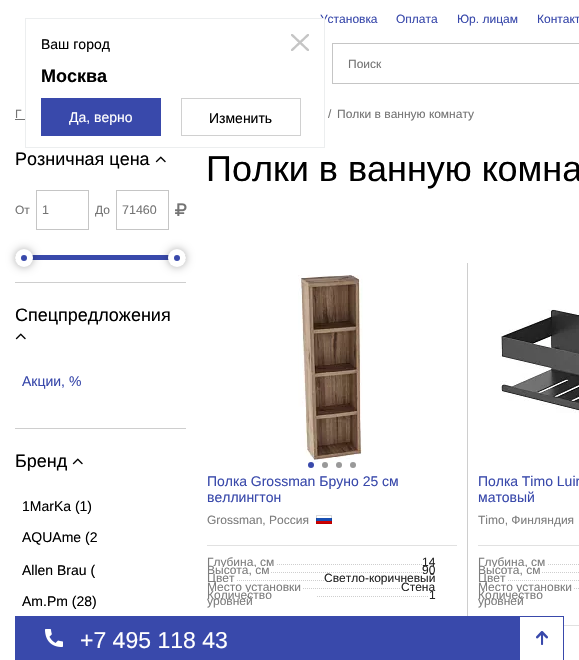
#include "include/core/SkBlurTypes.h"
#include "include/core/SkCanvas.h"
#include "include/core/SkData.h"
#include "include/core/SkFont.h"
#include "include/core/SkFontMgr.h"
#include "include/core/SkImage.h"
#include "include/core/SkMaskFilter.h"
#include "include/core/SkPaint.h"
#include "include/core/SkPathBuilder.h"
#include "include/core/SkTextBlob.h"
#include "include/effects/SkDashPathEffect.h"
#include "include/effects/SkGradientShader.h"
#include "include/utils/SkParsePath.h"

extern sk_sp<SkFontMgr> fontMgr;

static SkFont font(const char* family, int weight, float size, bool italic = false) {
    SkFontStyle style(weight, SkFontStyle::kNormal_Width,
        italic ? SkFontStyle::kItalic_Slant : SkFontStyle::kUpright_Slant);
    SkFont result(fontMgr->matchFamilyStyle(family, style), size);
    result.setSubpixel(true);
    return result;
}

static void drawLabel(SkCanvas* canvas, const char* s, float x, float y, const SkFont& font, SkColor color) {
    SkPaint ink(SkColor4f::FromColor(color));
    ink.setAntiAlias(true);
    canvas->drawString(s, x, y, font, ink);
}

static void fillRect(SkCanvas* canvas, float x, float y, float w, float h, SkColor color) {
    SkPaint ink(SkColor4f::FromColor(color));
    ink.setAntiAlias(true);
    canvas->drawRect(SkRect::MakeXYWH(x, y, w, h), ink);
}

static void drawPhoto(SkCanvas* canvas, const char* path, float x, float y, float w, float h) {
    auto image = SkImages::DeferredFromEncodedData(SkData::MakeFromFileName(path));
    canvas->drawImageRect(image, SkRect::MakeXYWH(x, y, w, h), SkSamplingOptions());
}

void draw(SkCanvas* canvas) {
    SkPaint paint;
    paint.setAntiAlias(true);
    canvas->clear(0xFFFFFFFF);
    SkFont font1 = font("Liberation Sans", 400, 12);
    drawLabel(canvas, "Установка", 320, 23, font1, 0xFF3949AB);
    fillRect(canvas, 320, 19, 4, 5, 0xFFFFFFFF);
    paint.setStroke(true);
    paint.setStrokeWidth(1);
    paint.setColor(0xFFECEEEF);
    canvas->drawRect(SkRect::MakeXYWH(25.5f, 18.5f, 299, 129), paint);
    SkFont font2 = font("Liberation Sans", 400, 14);
    drawLabel(canvas, "Ваш город", 41, 49, font2, 0xFF000000);
    SkFont font3 = font("Liberation Sans", 700, 18);
    drawLabel(canvas, "Москва", 41, 82, font3, 0xFF000000);
    fillRect(canvas, 41, 98, 120, 38, 0xFF3949AB);
    drawLabel(canvas, "Да, верно", 69, 122, font2, 0xFFFFFFFF);
    paint.setColor(0xFFD0D0D0);
    canvas->drawRect(SkRect::MakeXYWH(181.5f, 98.5f, 119, 37), paint);
    drawLabel(canvas, "Изменить", 209, 123, font2, 0xFF000000);
    drawPhoto(canvas, "assets/img1.png", 291, 34, 18, 17);
    drawLabel(canvas, "Оплата", 396, 23, font1, 0xFF3949AB);
    drawLabel(canvas, "Юр. лицам", 457, 23, font1, 0xFF3949AB);
    drawLabel(canvas, "Контакт", 537, 23, font1, 0xFF3949AB);
    paint.setColor(0xFFC5C5C5);
    canvas->drawRect(SkRect::MakeXYWH(332.5f, 43.5f, 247, 40), paint);
    drawLabel(canvas, "Поиск", 348, 68, font1, 0xFF747474);
    drawLabel(canvas, "Г", 15, 118, font1, 0xFF747474);
    fillRect(canvas, 15, 119, 10, 1, 0xFF747474);
    drawLabel(canvas, "/", 328, 118, font1, 0xFF747474);
    drawLabel(canvas, "Полки в ванную комнату", 337, 118, font1, 0xFF747474);
    fillRect(canvas, 15, 282, 171, 1, 0xFFCECECE);
    SkFont font4 = font("Liberation Sans", 400, 18);
    drawLabel(canvas, "Розничная цена", 15, 165, font4, 0xFF000000);
    drawPhoto(canvas, "assets/img2.png", 155, 156, 11, 7);
    drawLabel(canvas, "От", 15, 214, font1, 0xFF747474);
    canvas->drawRect(SkRect::MakeXYWH(36.5f, 190.5f, 52, 39), paint);
    SkFont font5 = font("Liberation Sans", 400, 12.5f);
    drawLabel(canvas, "1", 42, 214, font5, 0xFF747474);
    drawLabel(canvas, "До", 95, 214, font1, 0xFF747474);
    canvas->drawRect(SkRect::MakeXYWH(116.5f, 190.5f, 52, 39), paint);
    drawLabel(canvas, "71460", 122, 214, font5, 0xFF747474);
    drawPhoto(canvas, "assets/img3.png", 175, 203, 12, 13);
    fillRect(canvas, 15, 255, 171, 5, 0xFFC1C0BD);
    fillRect(canvas, 24, 255, 153, 5, 0xFF3949AB);
    paint.setStroke(false);
    paint.setColor(0x57000000);
    paint.setMaskFilter(SkMaskFilter::MakeBlur(kNormal_SkBlurStyle, 4));
    canvas->drawRoundRect(SkRect::MakeXYWH(15, 249, 18, 18), 9, 9, paint);
    paint.setMaskFilter(nullptr);
    paint.setColor(0xFFFFFFFF);
    canvas->drawCircle(24, 258, 9, paint);
    paint.setColor(0xFF3949AB);
    canvas->drawCircle(24, 258, 3, paint);
    paint.setColor(0x57000000);
    paint.setMaskFilter(SkMaskFilter::MakeBlur(kNormal_SkBlurStyle, 4));
    canvas->drawRoundRect(SkRect::MakeXYWH(168, 249, 18, 18), 9, 9, paint);
    paint.setMaskFilter(nullptr);
    paint.setColor(0xFFFFFFFF);
    canvas->drawCircle(177, 258, 9, paint);
    paint.setColor(0xFF3949AB);
    canvas->drawCircle(177, 258, 3, paint);
    fillRect(canvas, 15, 428, 171, 1, 0xFFCECECE);
    drawLabel(canvas, "Спецпредложения", 15, 321, font4, 0xFF000000);
    drawPhoto(canvas, "assets/img2.png", 15, 333, 11, 7);
    drawLabel(canvas, "Акции, %", 22, 386, font2, 0xFF3949AB);
    drawLabel(canvas, "Бренд", 15, 467, font4, 0xFF000000);
    drawPhoto(canvas, "assets/img2.png", 72, 458, 11, 7);
    drawLabel(canvas, "1MarKa (1)", 22, 511, font2, 0xFF000000);
    drawLabel(canvas, "AQUAme (2", 22, 542, font2, 0xFF000000);
    drawLabel(canvas, "Allen Brau (", 22, 575, font2, 0xFF000000);
    drawLabel(canvas, "Am.Pm (28)", 22, 606, font2, 0xFF000000);
    SkFont font6 = font("Liberation Sans", 400, 36);
    drawLabel(canvas, "Полки в ванную комна", 206, 181, font6, 0xFF000000);
    drawPhoto(canvas, "assets/img4.png", 298, 275, 65, 188);
    canvas->drawCircle(311, 465, 3, paint);
    paint.setColor(0xFF999999);
    canvas->drawCircle(325, 465, 3, paint);
    canvas->drawCircle(339, 465, 3, paint);
    canvas->drawCircle(353, 465, 3, paint);
    drawLabel(canvas, "Полка Grossman Бруно 25 см", 207, 486, font2, 0xFF3949AB);
    drawLabel(canvas, "веллингтон", 207, 502, font2, 0xFF3949AB);
    drawLabel(canvas, "Grossman, Россия", 207, 524, font1, 0xFF7D7D7D);
    drawPhoto(canvas, "assets/img5.png", 316, 515, 16, 9);
    fillRect(canvas, 207, 545, 250, 1, 0xFFE1E1E1);
    drawPhoto(canvas, "assets/img6.png", 277, 564, 45, 1);
    drawLabel(canvas, "Глубина, см", 207, 566, font1, 0xFF7D7D7D);
    drawPhoto(canvas, "assets/img7.png", 323, 564, 99, 1);
    drawLabel(canvas, "14", 422, 566, font1, 0xFF252525);
    drawPhoto(canvas, "assets/img8.png", 271, 572, 51, 1);
    fillRect(canvas, 221, 567, 35, 2, 0xFFFFFFFF);
    drawLabel(canvas, "Высота, см", 207, 574, font1, 0xFF7D7D7D);
    drawPhoto(canvas, "assets/img7.png", 323, 572, 99, 1);
    drawLabel(canvas, "90", 422, 574, font1, 0xFF252525);
    drawPhoto(canvas, "assets/img9.png", 237, 580, 85, 1);
    drawLabel(canvas, "Цвет", 207, 582, font1, 0xFF7D7D7D);
    drawPhoto(canvas, "assets/img10.png", 323, 580, 1, 1);
    drawLabel(canvas, "Светло-коричневый", 324, 582, font1, 0xFF252525);
    drawPhoto(canvas, "assets/img11.png", 303, 588, 19, 1);
    fillRect(canvas, 207, 584, 9, 1, 0xFFFFFFFF);
    drawLabel(canvas, "Место установки", 207, 591, font1, 0xFF7D7D7D);
    drawPhoto(canvas, "assets/img12.png", 323, 588, 77, 1);
    drawLabel(canvas, "Стена", 401, 591, font1, 0xFF252525);
    drawPhoto(canvas, "assets/img13.png", 317, 596, 5, 1);
    fillRect(canvas, 245, 592, 4, 2, 0xFFFFFFFF);
    drawLabel(canvas, "Количество", 207, 599, font1, 0xFF7D7D7D);
    drawLabel(canvas, "уровней", 207, 605, font1, 0xFF7D7D7D);
    drawPhoto(canvas, "assets/img14.png", 323, 596, 105, 1);
    drawLabel(canvas, "1", 429, 599, font1, 0xFF252525);
    fillRect(canvas, 467, 263, 1, 353, 0xFFCECECE);
    drawPhoto(canvas, "assets/img15.png", 500, 309, 79, 104);
    drawLabel(canvas, "Полка Timo Luir", 478, 486, font2, 0xFF3949AB);
    drawLabel(canvas, "матовый", 478, 502, font2, 0xFF3949AB);
    drawLabel(canvas, "Timo, Финляндия", 478, 524, font1, 0xFF7D7D7D);
    fillRect(canvas, 478, 545, 101, 1, 0xFFE1E1E1);
    drawPhoto(canvas, "assets/img16.png", 548, 564, 31, 1);
    drawLabel(canvas, "Глубина, см", 478, 566, font1, 0xFF7D7D7D);
    drawPhoto(canvas, "assets/img17.png", 542, 572, 37, 1);
    fillRect(canvas, 491, 567, 36, 2, 0xFFFFFFFF);
    drawLabel(canvas, "Высота, см", 478, 574, font1, 0xFF7D7D7D);
    drawPhoto(canvas, "assets/img18.png", 508, 580, 71, 1);
    drawLabel(canvas, "Цвет", 478, 582, font1, 0xFF7D7D7D);
    drawPhoto(canvas, "assets/img19.png", 574, 588, 5, 1);
    fillRect(canvas, 478, 584, 9, 1, 0xFFFFFFFF);
    drawLabel(canvas, "Место установки", 478, 591, font1, 0xFF7D7D7D);
    fillRect(canvas, 516, 592, 4, 2, 0xFFFFFFFF);
    drawLabel(canvas, "Количество", 478, 599, font1, 0xFF7D7D7D);
    drawLabel(canvas, "уровней", 478, 605, font1, 0xFF7D7D7D);
    fillRect(canvas, 564, 625, 15, 1, 0xFFE1E1E1);
    fillRect(canvas, 15, 616, 549, 44, 0xFF3949AB);
    drawPhoto(canvas, "assets/img20.png", 45, 629, 18, 18);
    SkFont font7 = font("Liberation Sans", 400, 23);
    drawLabel(canvas, "+7 495 118 43", 80, 648, font7, 0xFFFFFFFF);
    fillRect(canvas, 520, 617, 43, 43, 0xFFFFFFFF);
    drawPhoto(canvas, "assets/img21.png", 536, 631, 12, 14);
}
